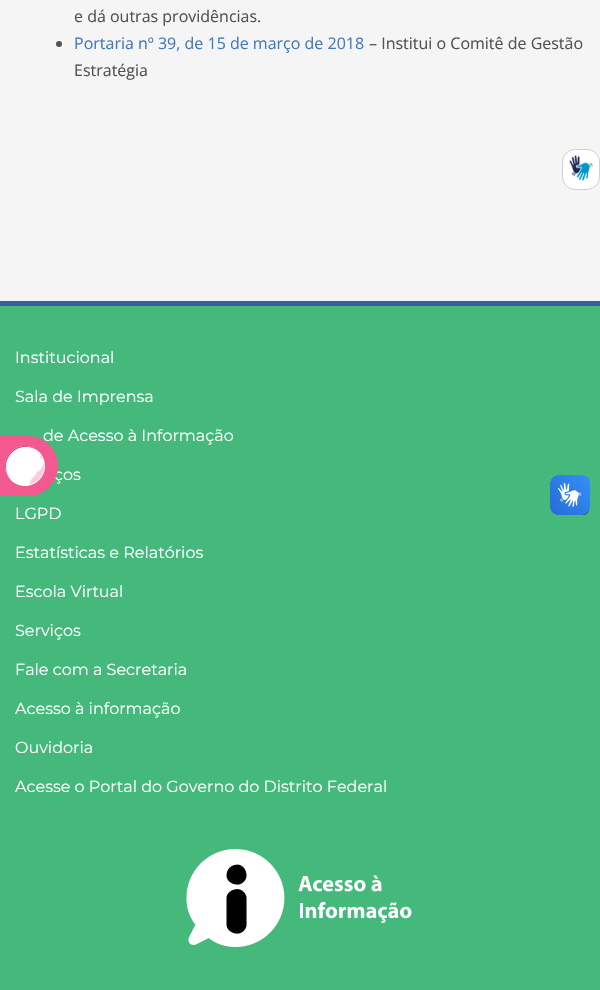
#include "include/core/SkBlurTypes.h"
#include "include/core/SkCanvas.h"
#include "include/core/SkData.h"
#include "include/core/SkFont.h"
#include "include/core/SkFontMgr.h"
#include "include/core/SkImage.h"
#include "include/core/SkMaskFilter.h"
#include "include/core/SkPaint.h"
#include "include/core/SkPathBuilder.h"
#include "include/core/SkTextBlob.h"
#include "include/effects/SkDashPathEffect.h"
#include "include/effects/SkGradientShader.h"
#include "include/utils/SkParsePath.h"

extern sk_sp<SkFontMgr> fontMgr;

static SkFont font(const char* family, int weight, float size, bool italic = false) {
    SkFontStyle style(weight, SkFontStyle::kNormal_Width,
        italic ? SkFontStyle::kItalic_Slant : SkFontStyle::kUpright_Slant);
    SkFont result(fontMgr->matchFamilyStyle(family, style), size);
    result.setSubpixel(true);
    return result;
}

static void drawLabel(SkCanvas* canvas, const char* s, float x, float y, const SkFont& font, SkColor color) {
    SkPaint ink(SkColor4f::FromColor(color));
    ink.setAntiAlias(true);
    canvas->drawString(s, x, y, font, ink);
}

static void fillRect(SkCanvas* canvas, float x, float y, float w, float h, SkColor color) {
    SkPaint ink(SkColor4f::FromColor(color));
    ink.setAntiAlias(true);
    canvas->drawRect(SkRect::MakeXYWH(x, y, w, h), ink);
}

static void drawPhoto(SkCanvas* canvas, const char* path, float x, float y, float w, float h) {
    auto image = SkImages::DeferredFromEncodedData(SkData::MakeFromFileName(path));
    canvas->drawImageRect(image, SkRect::MakeXYWH(x, y, w, h), SkSamplingOptions());
}

static SkPath parsePath(const char* data, bool evenOdd = false) {
    SkPath result = *SkParsePath::FromSVGString(data);
    if (evenOdd) result.setFillType(SkPathFillType::kEvenOdd);
    return result;
}

void draw(SkCanvas* canvas) {
    SkPaint paint;
    paint.setAntiAlias(true);
    canvas->clear(0xFFF5F5F5);
    SkFont font1 = font("Open Sans", 400, 16);
    drawLabel(canvas, "e dá outras providências.", 74, 22, font1, 0xFF515151);
    paint.setColor(0xFF515151);
    canvas->drawCircle(59, 44, 3, paint);
    drawLabel(canvas, "Portaria nº 39, de 15 de março de 2018", 74, 49, font1, 0xFF4079BC);
    drawLabel(canvas, "– Institui o Comitê de Gestão", 369, 49, font1, 0xFF515151);
    drawLabel(canvas, "Estratégia", 74, 76, font1, 0xFF515151);
    fillRect(canvas, 0, 306, 600, 684, 0xFF45B97C);
    SkFont font2 = font("Montserrat", 400, 16);
    drawLabel(canvas, "de Acesso à Informação", 43, 441, font2, 0xFFFFFFFF);
    drawLabel(canvas, "ços", 54, 480, font2, 0xFFFFFFFF);
    paint.setColor(0xFFF3588E);
    canvas->drawPath(parsePath("M-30 436H28C44.5 436 58 449.5 58 466C58 482.5 44.5 496 28 496H-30Z"), paint);
    drawPhoto(canvas, "assets/img1.png", 5, 446, 40, 40);
    fillRect(canvas, 0, 301, 600, 5, 0xFF346399);
    paint.setColor(0xFFFFFFFF);
    canvas->drawRoundRect(SkRect::MakeXYWH(562.5f, 149.5f, 37, 40), 12.5f, 12.5f, paint);
    paint.setStroke(true);
    paint.setStrokeWidth(1);
    paint.setColor(0xFFD0D0D0);
    canvas->drawRoundRect(SkRect::MakeXYWH(562.5f, 149.5f, 37, 40), 12.5f, 12.5f, paint);
    drawPhoto(canvas, "assets/img2.png", 569, 155, 24, 26);
    drawLabel(canvas, "Institucional", 15, 363, font2, 0xFFFFFFFF);
    drawLabel(canvas, "Sala de Imprensa", 15, 402, font2, 0xFFFFFFFF);
    drawLabel(canvas, "LGPD", 15, 519, font2, 0xFFFFFFFF);
    drawLabel(canvas, "Estatísticas e Relatórios", 15, 558, font2, 0xFFFFFFFF);
    drawLabel(canvas, "Escola Virtual", 15, 597, font2, 0xFFFFFFFF);
    drawLabel(canvas, "Serviços", 15, 636, font2, 0xFFFFFFFF);
    drawLabel(canvas, "Fale com a Secretaria", 15, 675, font2, 0xFFFFFFFF);
    drawLabel(canvas, "Acesso à informação", 15, 714, font2, 0xFFFFFFFF);
    drawLabel(canvas, "Ouvidoria", 15, 753, font2, 0xFFFFFFFF);
    drawLabel(canvas, "Acesse o Portal do Governo do Distrito Federal", 15, 792, font2, 0xFFFFFFFF);
    drawPhoto(canvas, "assets/img3.png", 186, 849, 226, 98);
    drawPhoto(canvas, "assets/img4.png", 550, 475, 40, 40);
    drawPhoto(canvas, "assets/img5.png", 550, 475, 40, 40);
}
